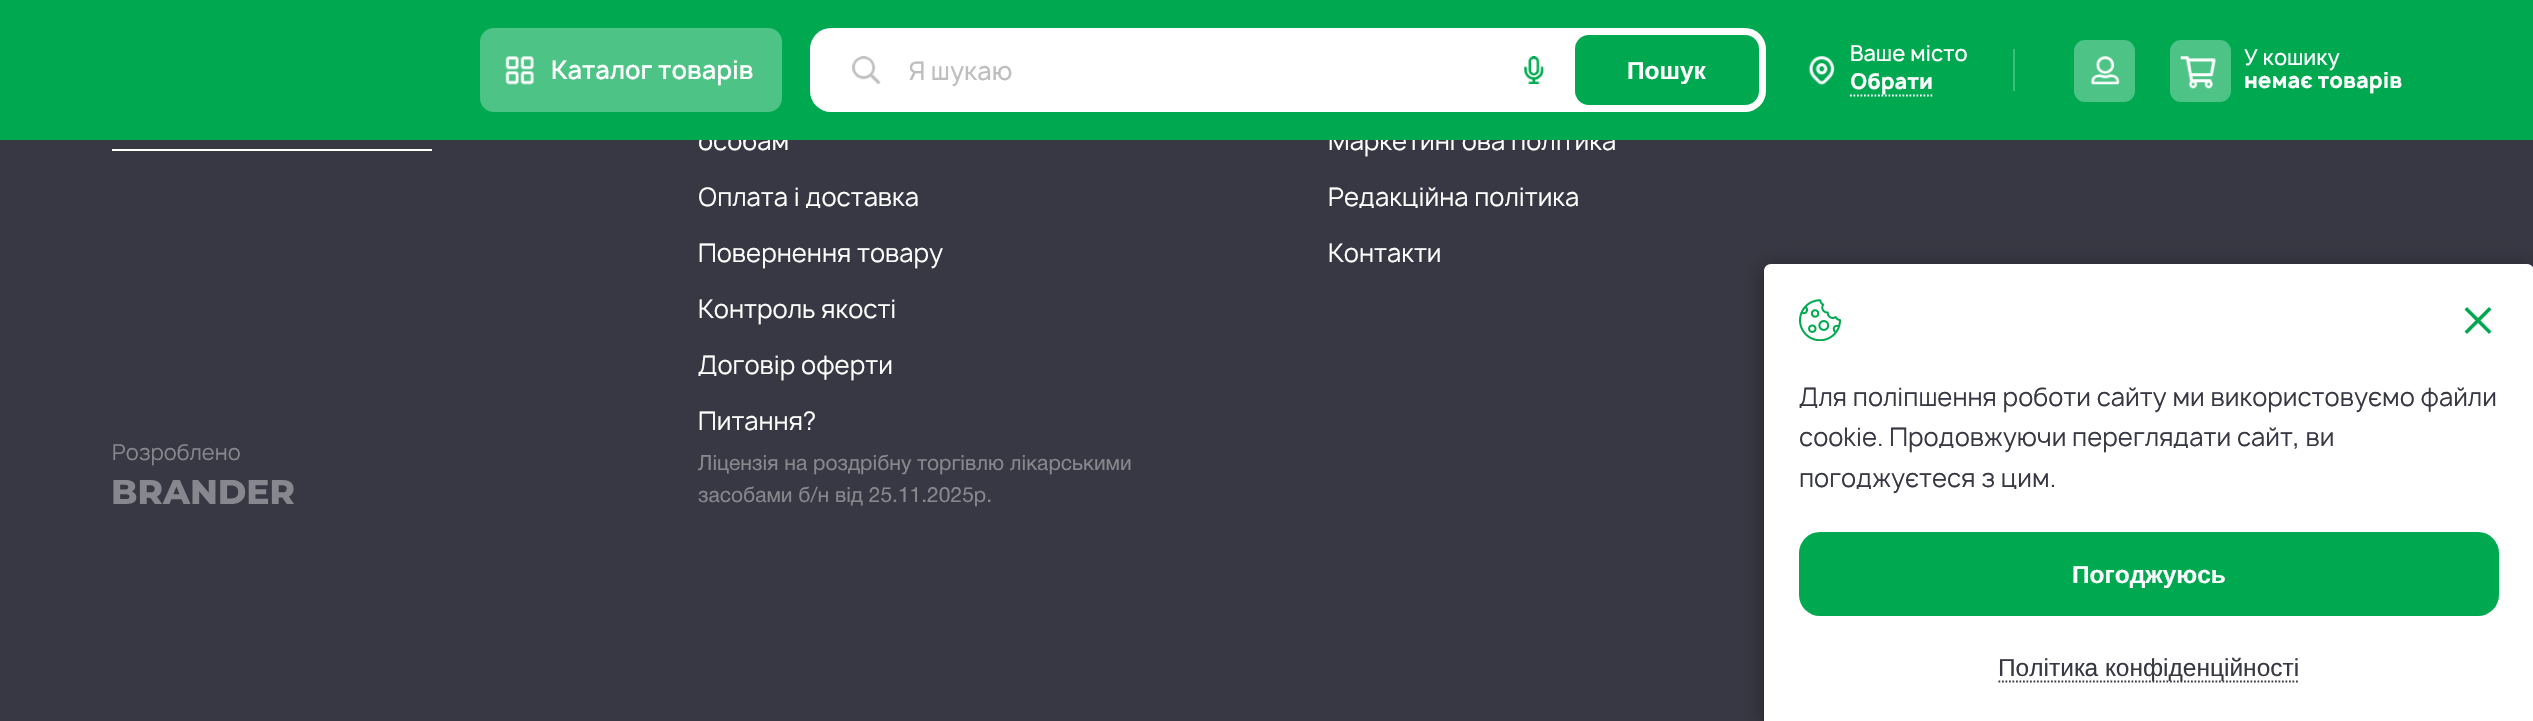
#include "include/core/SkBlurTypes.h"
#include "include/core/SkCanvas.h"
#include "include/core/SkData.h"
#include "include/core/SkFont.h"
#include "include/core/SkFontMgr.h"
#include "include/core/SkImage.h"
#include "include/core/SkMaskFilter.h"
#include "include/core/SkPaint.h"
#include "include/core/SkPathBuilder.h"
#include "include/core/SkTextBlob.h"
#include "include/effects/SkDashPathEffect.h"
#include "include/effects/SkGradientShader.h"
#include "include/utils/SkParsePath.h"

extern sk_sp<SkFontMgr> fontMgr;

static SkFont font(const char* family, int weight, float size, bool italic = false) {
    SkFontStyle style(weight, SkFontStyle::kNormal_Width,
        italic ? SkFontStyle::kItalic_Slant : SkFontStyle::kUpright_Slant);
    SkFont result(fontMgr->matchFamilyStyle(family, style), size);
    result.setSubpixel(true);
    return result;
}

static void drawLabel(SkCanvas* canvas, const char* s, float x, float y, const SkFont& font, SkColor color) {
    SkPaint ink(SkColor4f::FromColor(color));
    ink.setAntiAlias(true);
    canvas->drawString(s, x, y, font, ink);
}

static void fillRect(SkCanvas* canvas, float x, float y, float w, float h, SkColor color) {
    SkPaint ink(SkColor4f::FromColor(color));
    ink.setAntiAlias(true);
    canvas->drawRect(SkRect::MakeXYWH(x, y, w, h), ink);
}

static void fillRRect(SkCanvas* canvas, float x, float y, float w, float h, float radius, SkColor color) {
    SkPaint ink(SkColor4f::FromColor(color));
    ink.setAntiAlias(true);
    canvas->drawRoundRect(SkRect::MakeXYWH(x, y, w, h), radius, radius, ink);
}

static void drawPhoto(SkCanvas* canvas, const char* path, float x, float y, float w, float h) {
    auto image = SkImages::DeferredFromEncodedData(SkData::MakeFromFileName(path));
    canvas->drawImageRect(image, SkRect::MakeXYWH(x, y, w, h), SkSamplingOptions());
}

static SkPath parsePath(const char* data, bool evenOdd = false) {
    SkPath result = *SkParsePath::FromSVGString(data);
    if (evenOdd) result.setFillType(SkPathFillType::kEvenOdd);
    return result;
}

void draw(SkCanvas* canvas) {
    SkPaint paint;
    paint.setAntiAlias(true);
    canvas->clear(0xFF373843);
    SkFont font1 = font("Manrope", 400, 24.5f);
    drawLabel(canvas, "особам", 698, 150, font1, 0xFFFFFFFF);
    drawLabel(canvas, "Маркетингова політика", 1328, 150, font1, 0xFFFFFFFF);
    fillRect(canvas, 0, 0, 2533, 140, 0xFF00A950);
    fillRRect(canvas, 480, 28, 302, 84, 14, 0xFF4DC385);
    drawPhoto(canvas, "assets/img1.png", 505, 56, 29, 29);
    SkFont font2 = font("Manrope", 600, 24.5f);
    drawLabel(canvas, "Каталог товарів", 551, 79, font2, 0xFFFFFFFF);
    fillRRect(canvas, 810, 28, 956, 84, 21, 0xFFFFFFFF);
    drawPhoto(canvas, "assets/img2.png", 852, 56, 29, 28);
    SkFont font3 = font("Manrope", 500, 24.5f);
    drawLabel(canvas, "Я шукаю", 908, 80, font3, 0xFFBEBEBE);
    drawPhoto(canvas, "assets/img3.png", 1524, 56, 20, 28);
    fillRRect(canvas, 1575, 35, 184, 70, 14, 0xFF00A950);
    SkFont font4 = font("Liberation Sans", 700, 24.5f);
    drawLabel(canvas, "Пошук", 1627, 79, font4, 0xFFFFFFFF);
    drawPhoto(canvas, "assets/img4.png", 1808, 56, 27, 29);
    SkFont font5 = font("Manrope", 500, 21);
    drawLabel(canvas, "Ваше місто", 1850, 61, font5, 0xFFFFFFFF);
    fillRect(canvas, 2013, 49, 2, 42, 0xFF3DBE7A);
    paint.setStroke(true);
    paint.setStrokeWidth(1.8f);
    paint.setColor(0xFFFFFFFF);
    paint.setPathEffect(SkDashPathEffect::Make({{1.75f, 1.75f}}, 0));
    canvas->drawPath(parsePath("M1850 95.5H1933"), paint);
    paint.setPathEffect(nullptr);
    SkFont font6 = font("Manrope", 800, 21);
    drawLabel(canvas, "Обрати", 1850, 89, font6, 0xFFFFFFFF);
    fillRRect(canvas, 2074, 40, 61, 62, 11, 0xFF4DC385);
    drawPhoto(canvas, "assets/img5.png", 2090, 56, 30, 29);
    fillRRect(canvas, 2170, 40, 61, 62, 11, 0xFF4DC385);
    drawPhoto(canvas, "assets/img6.png", 2180, 56, 36, 33);
    drawLabel(canvas, "У кошику", 2244, 65, font5, 0xFFFFFFFF);
    drawLabel(canvas, "немає товарів", 2244, 88, font6, 0xFFFFFFFF);
    fillRect(canvas, 112, 149, 320, 2, 0xFFFFFFFF);
    SkFont font7 = font("Manrope", 400, 21);
    drawLabel(canvas, "Розроблено", 112, 460, font7, 0xFF87888E);
    drawPhoto(canvas, "assets/img7.png", 113, 480, 181, 24);
    drawLabel(canvas, "Оплата і доставка", 698, 206, font1, 0xFFFFFFFF);
    drawLabel(canvas, "Повернення товару", 698, 262, font1, 0xFFFFFFFF);
    drawLabel(canvas, "Контроль якості", 698, 318, font1, 0xFFFFFFFF);
    drawLabel(canvas, "Договір оферти", 698, 374, font1, 0xFFFFFFFF);
    drawLabel(canvas, "Питання?", 698, 430, font1, 0xFFFFFFFF);
    drawLabel(canvas, "Редакційна політика", 1328, 206, font1, 0xFFFFFFFF);
    drawLabel(canvas, "Контакти", 1328, 262, font1, 0xFFFFFFFF);
    SkFont font8 = font("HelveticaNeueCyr", 400, 21);
    drawLabel(canvas, "Ліцензія на роздрібну торгівлю лікарськими", 698, 470, font8, 0xFF87888E);
    drawLabel(canvas, "засобами б/н від 25.11.2025р.", 698, 502, font8, 0xFF87888E);
    paint.setStroke(false);
    paint.setColor(0x66000000);
    paint.setMaskFilter(SkMaskFilter::MakeBlur(kNormal_SkBlurStyle, 10.5f));
    canvas->drawRoundRect(SkRect::MakeXYWH(1764, 268, 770, 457), 7, 7, paint);
    paint.setMaskFilter(nullptr);
    paint.setColor(0xFFFFFFFF);
    canvas->drawPath(parsePath("M1771 264H2527C2531 264 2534 267 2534 271V721H1764V271C1764 267 1767 264 1771 264Z"), paint);
    drawPhoto(canvas, "assets/img8.png", 1799, 299, 42, 42);
    paint.setColor(0xFF00A950);
    canvas->drawPath(parsePath("M2467 307L2491.5 331.5L2489 334L2464.5 309.5Z"), paint);
    canvas->drawPath(parsePath("M2464.5 331.5L2489 307L2491.5 309.5L2467 334Z"), paint);
    drawLabel(canvas, "Для поліпшення роботи сайту ми використовуємо файли", 1799, 406, font1, 0xFF373843);
    drawLabel(canvas, "cookie. Продовжуючи переглядати сайт, ви", 1799, 446, font1, 0xFF373843);
    drawLabel(canvas, "погоджуєтеся з цим.", 1799, 487, font1, 0xFF373843);
    fillRRect(canvas, 1799, 532, 700, 84, 21, 0xFF00A950);
    drawLabel(canvas, "Погоджуюсь", 2072, 583, font4, 0xFFFFFFFF);
    paint.setStroke(true);
    paint.setColor(0xFF373843);
    paint.setPathEffect(SkDashPathEffect::Make({{1.75f, 1.75f}}, 0));
    canvas->drawPath(parsePath("M1998.5 681.5H2299.5"), paint);
    paint.setPathEffect(nullptr);
    SkFont font9 = font("Liberation Sans", 400, 24.5f);
    drawLabel(canvas, "Політика конфіденційності", 1998, 676, font9, 0xFF373843);
}
